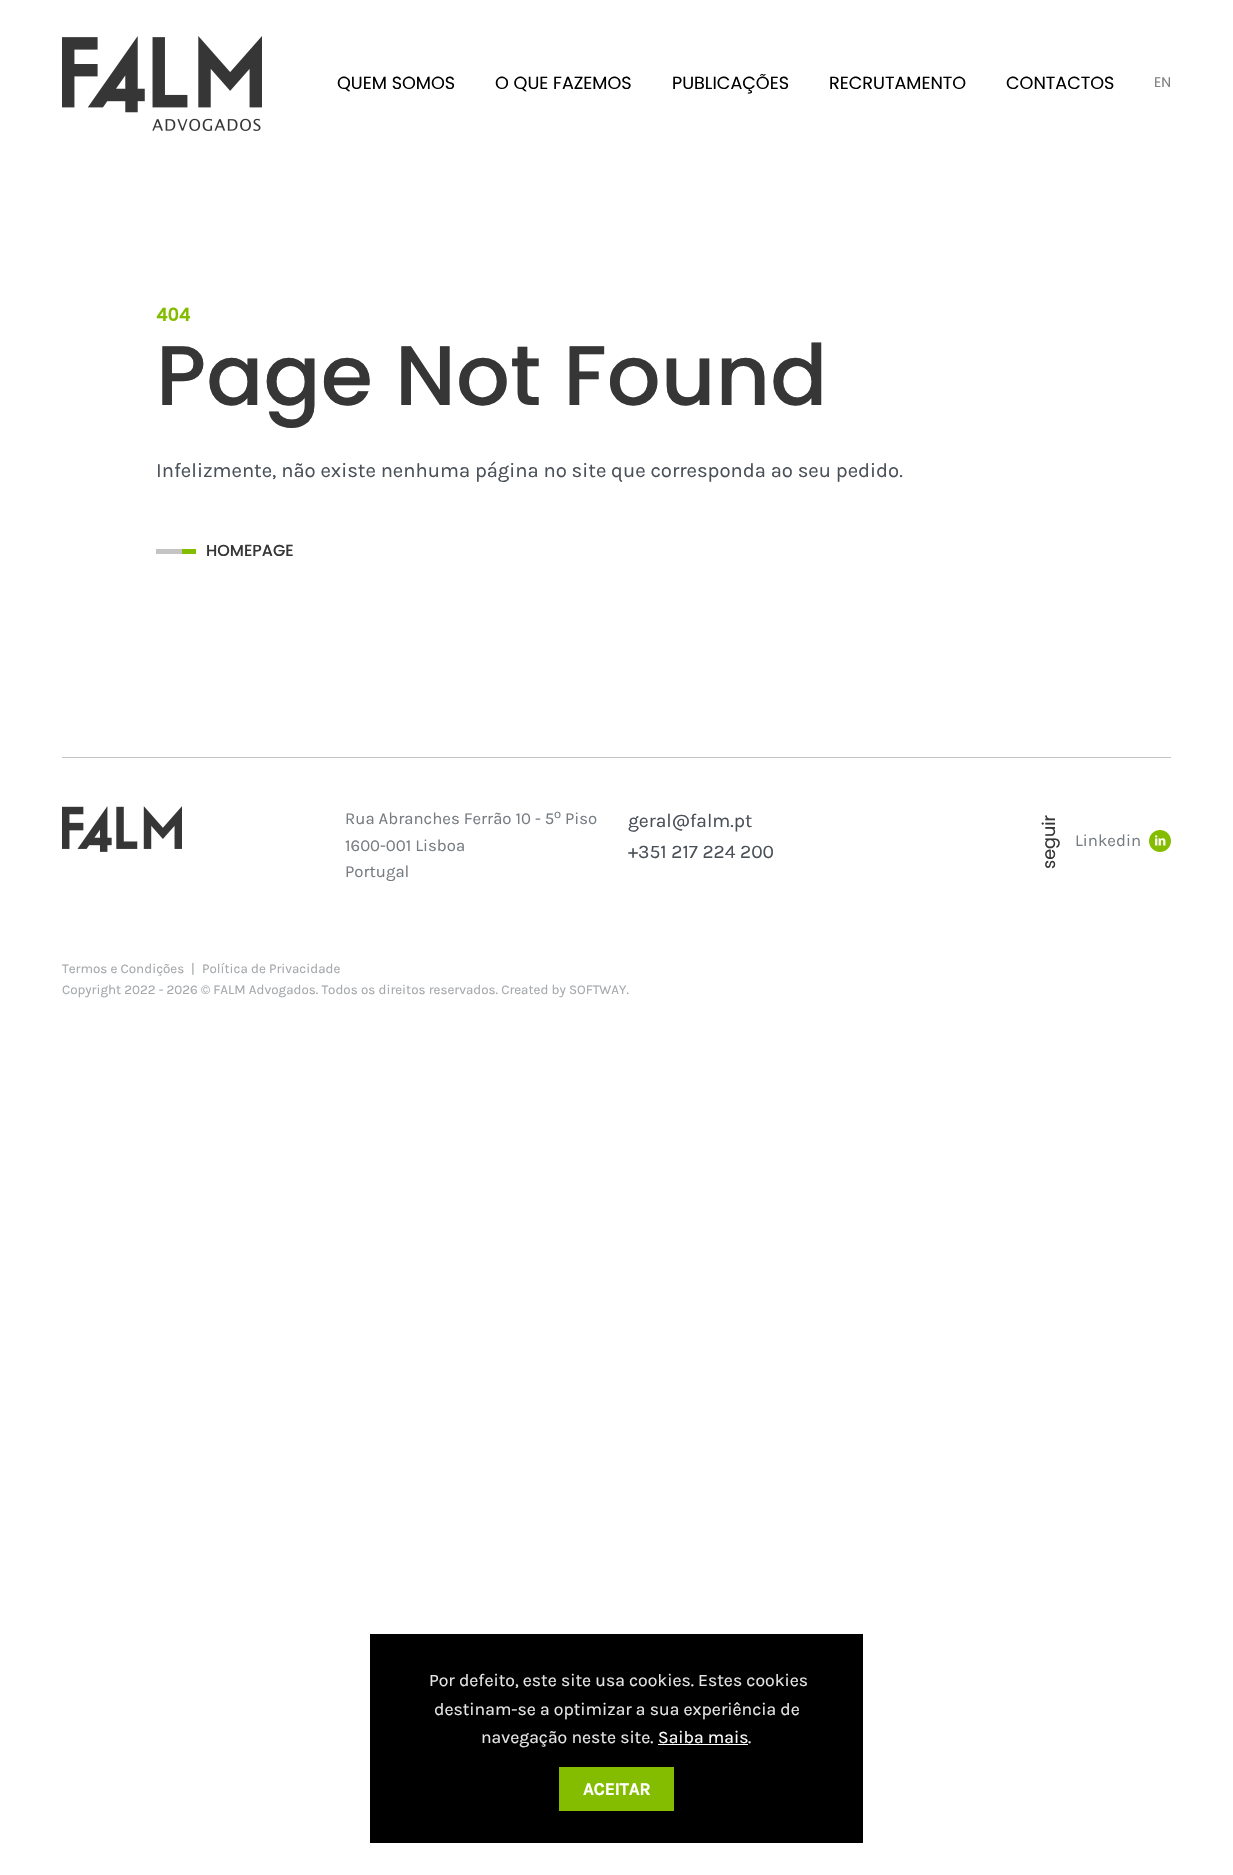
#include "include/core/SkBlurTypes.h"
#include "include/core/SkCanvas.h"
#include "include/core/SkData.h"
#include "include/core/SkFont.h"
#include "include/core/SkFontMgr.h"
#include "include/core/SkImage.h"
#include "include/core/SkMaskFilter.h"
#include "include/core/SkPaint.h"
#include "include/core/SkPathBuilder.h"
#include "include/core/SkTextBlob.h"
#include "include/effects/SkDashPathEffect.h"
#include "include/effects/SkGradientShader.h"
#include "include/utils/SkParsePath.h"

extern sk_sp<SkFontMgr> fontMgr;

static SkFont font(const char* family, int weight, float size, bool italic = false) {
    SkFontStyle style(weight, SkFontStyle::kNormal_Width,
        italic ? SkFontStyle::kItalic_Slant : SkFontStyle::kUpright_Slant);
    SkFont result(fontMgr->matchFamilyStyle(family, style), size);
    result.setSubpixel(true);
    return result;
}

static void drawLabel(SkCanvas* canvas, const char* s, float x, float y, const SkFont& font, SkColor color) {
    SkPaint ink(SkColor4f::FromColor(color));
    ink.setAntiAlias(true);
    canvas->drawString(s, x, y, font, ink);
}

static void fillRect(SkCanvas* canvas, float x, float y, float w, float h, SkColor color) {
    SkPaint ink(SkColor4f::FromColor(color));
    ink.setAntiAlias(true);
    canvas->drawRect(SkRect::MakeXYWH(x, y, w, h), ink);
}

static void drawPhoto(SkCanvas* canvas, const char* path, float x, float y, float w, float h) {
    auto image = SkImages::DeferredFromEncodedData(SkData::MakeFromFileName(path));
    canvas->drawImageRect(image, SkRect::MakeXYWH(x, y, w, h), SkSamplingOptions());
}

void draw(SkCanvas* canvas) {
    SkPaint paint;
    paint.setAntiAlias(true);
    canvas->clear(0xFFFFFFFF);
    drawPhoto(canvas, "assets/img1.png", 62, 36, 200, 95);
    SkFont font1 = font("Poppins", 400, 17.6f);
    drawLabel(canvas, "QUEM SOMOS", 337, 89, font1, 0xFF000000);
    drawLabel(canvas, "O QUE FAZEMOS", 495, 89, font1, 0xFF000000);
    drawLabel(canvas, "PUBLICAÇÕES", 672, 89, font1, 0xFF000000);
    drawLabel(canvas, "RECRUTAMENTO", 829, 89, font1, 0xFF000000);
    drawLabel(canvas, "CONTACTOS", 1006, 89, font1, 0xFF000000);
    SkFont font2 = font("Poppins", 400, 14);
    drawLabel(canvas, "EN", 1154, 87, font2, 0xFF808080);
    SkFont font3 = font("Poppins", 700, 17.6f);
    drawLabel(canvas, "404", 156, 321, font3, 0xFF84BD00);
    SkFont font4 = font("Poppins", 500, 84.5f);
    drawLabel(canvas, "Page Not Found", 156, 405, font4, 0xFF363636);
    SkFont font5 = font("Karla", 400, 20.25f);
    drawLabel(canvas, "Infelizmente, não existe nenhuma página no site que corresponda ao seu pedido.", 156, 477, font5, 0xFF495057);
    fillRect(canvas, 156, 549, 26, 5, 0xFFC4C4C4);
    fillRect(canvas, 182, 549, 14, 5, 0xFF84BD00);
    SkFont font6 = font("Poppins", 500, 16);
    drawLabel(canvas, "HOMEPAGE", 206, 556, font6, 0xFF363636);
    fillRect(canvas, 62, 757, 1109, 1, 0xFFC4C4C4);
    drawPhoto(canvas, "assets/img2.png", 62, 806, 120, 46);
    SkFont font7 = font("Karla", 400, 16.75f);
    drawLabel(canvas, "Rua Abranches Ferrão 10 - 5", 345, 824, font7, 0xFF777C81);
    SkFont font8 = font("Karla", 400, 13);
    drawLabel(canvas, "º", 554, 818, font8, 0xFF777C81);
    drawLabel(canvas, "Piso", 565, 824, font7, 0xFF777C81);
    drawLabel(canvas, "1600-001 Lisboa", 345, 851, font7, 0xFF777C81);
    drawLabel(canvas, "Portugal", 345, 877, font7, 0xFF777C81);
    SkFont font9 = font("Karla", 400, 19.25f);
    drawLabel(canvas, "geral@falm.pt", 628, 827, font9, 0xFF495057);
    drawLabel(canvas, "+351 217 224 200", 628, 858, font9, 0xFF495057);
    canvas->save();
    canvas->rotate(-90, 1055, 869);
    drawLabel(canvas, "seguir", 1055, 869, font1, 0xFF363636);
    canvas->restore();
    drawLabel(canvas, "Linkedin", 1075, 846, font7, 0xFF777C81);
    drawPhoto(canvas, "assets/img3.png", 1149, 830, 22, 22);
    SkFont font10 = font("Karla", 400, 13.4f);
    drawLabel(canvas, "Termos e Condições", 62, 973, font10, 0xFFA4A8AB);
    drawLabel(canvas, "|", 191, 973, font10, 0xFFA4A8AB);
    drawLabel(canvas, "Política de Privacidade", 202, 973, font10, 0xFFA4A8AB);
    drawLabel(canvas, "Copyright 2022 - 2026 © FALM Advogados. Todos os direitos reservados. Created by SOFTWAY.", 62, 994, font10, 0xFFA4A8AB);
    fillRect(canvas, 370, 1634, 493, 209, 0xFF000000);
    SkFont font11 = font("Karla", 400, 17.6f);
    drawLabel(canvas, "Por defeito, este site usa cookies. Estes cookies", 429, 1686, font11, 0xFFE6E6E6);
    drawLabel(canvas, "destinam-se a optimizar a sua experiência de", 434, 1715, font11, 0xFFE6E6E6);
    drawLabel(canvas, "navegação neste site.", 481, 1743, font11, 0xFFE6E6E6);
    drawLabel(canvas, "Saiba mais", 658, 1743, font11, 0xFFFFFFFF);
    fillRect(canvas, 658, 1744, 90, 1, 0xFFFFFFFF);
    drawLabel(canvas, ".", 748, 1743, font11, 0xFFE6E6E6);
    fillRect(canvas, 559, 1767, 115, 44, 0xFF84BD00);
    SkFont font12 = font("Karla", 700, 17.6f);
    drawLabel(canvas, "ACEITAR", 583, 1795, font12, 0xFFFFFFFF);
}
